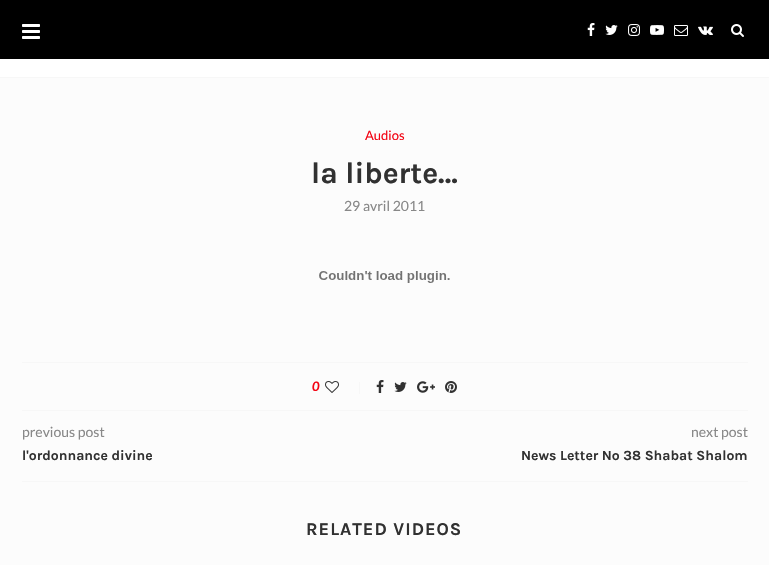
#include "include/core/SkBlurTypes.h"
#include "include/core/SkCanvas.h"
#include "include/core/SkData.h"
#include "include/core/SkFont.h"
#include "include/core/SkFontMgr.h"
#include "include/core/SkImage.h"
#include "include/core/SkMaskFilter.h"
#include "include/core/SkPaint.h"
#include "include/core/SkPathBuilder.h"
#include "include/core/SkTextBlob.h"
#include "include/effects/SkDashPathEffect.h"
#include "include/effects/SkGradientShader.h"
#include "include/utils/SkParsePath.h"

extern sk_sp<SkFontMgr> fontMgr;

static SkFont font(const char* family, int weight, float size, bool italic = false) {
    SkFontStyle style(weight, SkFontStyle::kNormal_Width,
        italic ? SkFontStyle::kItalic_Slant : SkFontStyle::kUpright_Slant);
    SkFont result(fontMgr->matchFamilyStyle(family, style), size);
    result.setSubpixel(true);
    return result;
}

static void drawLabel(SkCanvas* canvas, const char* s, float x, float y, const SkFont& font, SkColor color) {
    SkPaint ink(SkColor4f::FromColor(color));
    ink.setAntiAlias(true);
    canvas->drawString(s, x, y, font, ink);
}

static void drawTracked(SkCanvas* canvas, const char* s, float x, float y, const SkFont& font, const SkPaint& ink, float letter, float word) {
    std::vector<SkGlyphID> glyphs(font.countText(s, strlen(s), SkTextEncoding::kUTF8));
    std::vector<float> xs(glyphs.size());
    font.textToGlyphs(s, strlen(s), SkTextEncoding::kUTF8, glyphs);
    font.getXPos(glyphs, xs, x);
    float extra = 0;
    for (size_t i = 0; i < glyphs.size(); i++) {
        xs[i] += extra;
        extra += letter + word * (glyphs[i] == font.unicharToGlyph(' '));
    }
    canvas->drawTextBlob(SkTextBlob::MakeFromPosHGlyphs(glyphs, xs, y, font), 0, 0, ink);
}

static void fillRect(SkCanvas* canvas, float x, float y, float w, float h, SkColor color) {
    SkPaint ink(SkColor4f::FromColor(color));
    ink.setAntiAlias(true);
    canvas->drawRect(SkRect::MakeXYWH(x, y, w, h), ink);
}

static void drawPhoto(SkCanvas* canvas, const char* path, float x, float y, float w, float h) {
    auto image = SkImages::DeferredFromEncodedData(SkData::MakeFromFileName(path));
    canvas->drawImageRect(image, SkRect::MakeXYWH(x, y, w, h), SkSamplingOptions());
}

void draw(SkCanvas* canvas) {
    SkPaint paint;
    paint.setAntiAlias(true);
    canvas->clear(0xFFFCFCFC);
    fillRect(canvas, 0, 0, 769, 59, 0xFF000000);
    fillRect(canvas, 0, 59, 769, 18, 0xFFFFFFFF);
    drawPhoto(canvas, "assets/img1.png", 22, 24, 18, 15);
    drawPhoto(canvas, "assets/img2.png", 587, 23, 8, 13);
    drawPhoto(canvas, "assets/img3.png", 605, 25, 13, 10);
    drawPhoto(canvas, "assets/img4.png", 628, 24, 12, 12);
    drawPhoto(canvas, "assets/img5.png", 650, 25, 14, 10);
    drawPhoto(canvas, "assets/img6.png", 674, 25, 14, 11);
    drawPhoto(canvas, "assets/img7.png", 698, 26, 15, 9);
    drawPhoto(canvas, "assets/img8.png", 731, 24, 13, 13);
    fillRect(canvas, 0, 77, 769, 1, 0xFFF7F7F7);
    SkFont font1 = font("Lato", 400, 13);
    drawLabel(canvas, "Audios", 365, 140, font1, 0xFFF30514);
    SkFont font2 = font("Karla", 700, 30);
    drawLabel(canvas, "la liberte…", 311, 183, font2, 0xFF313131);
    SkFont font3 = font("Lato", 400, 14);
    drawLabel(canvas, "29 avril 2011", 344, 211, font3, 0xFF888888);
    drawPhoto(canvas, "assets/img9.png", 319, 271, 131, 12);
    fillRect(canvas, 22, 362, 726, 1, 0xFFF7F7F7);
    SkFont font4 = font("Lato", 700, 13, true);
    drawLabel(canvas, "0", 312, 391, font4, 0xFFF30514);
    drawPhoto(canvas, "assets/img10.png", 325, 381, 14, 12);
    fillRect(canvas, 359, 382, 1, 12, 0xFFF7F7F7);
    drawPhoto(canvas, "assets/img11.png", 376, 380, 8, 13);
    drawPhoto(canvas, "assets/img12.png", 394, 382, 13, 10);
    drawPhoto(canvas, "assets/img13.png", 417, 381, 18, 12);
    drawPhoto(canvas, "assets/img14.png", 445, 381, 12, 12);
    fillRect(canvas, 22, 410, 726, 1, 0xFFF7F7F7);
    drawLabel(canvas, "previous post", 22, 437, font3, 0xFF888888);
    SkFont font5 = font("Karla", 700, 14);
    drawLabel(canvas, "l'ordonnance divine", 22, 460, font5, 0xFF313131);
    drawLabel(canvas, "next post", 691, 437, font3, 0xFF888888);
    drawLabel(canvas, "News Letter No 38 Shabat Shalom", 521, 460, font5, 0xFF313131);
    fillRect(canvas, 22, 481, 726, 1, 0xFFF7F7F7);
    SkFont font6 = font("Karla", 700, 18);
    paint.setColor(0xFF313131);
    drawTracked(canvas, "RELATED VIDEOS", 306, 535, font6, paint, 1, 0);
}
